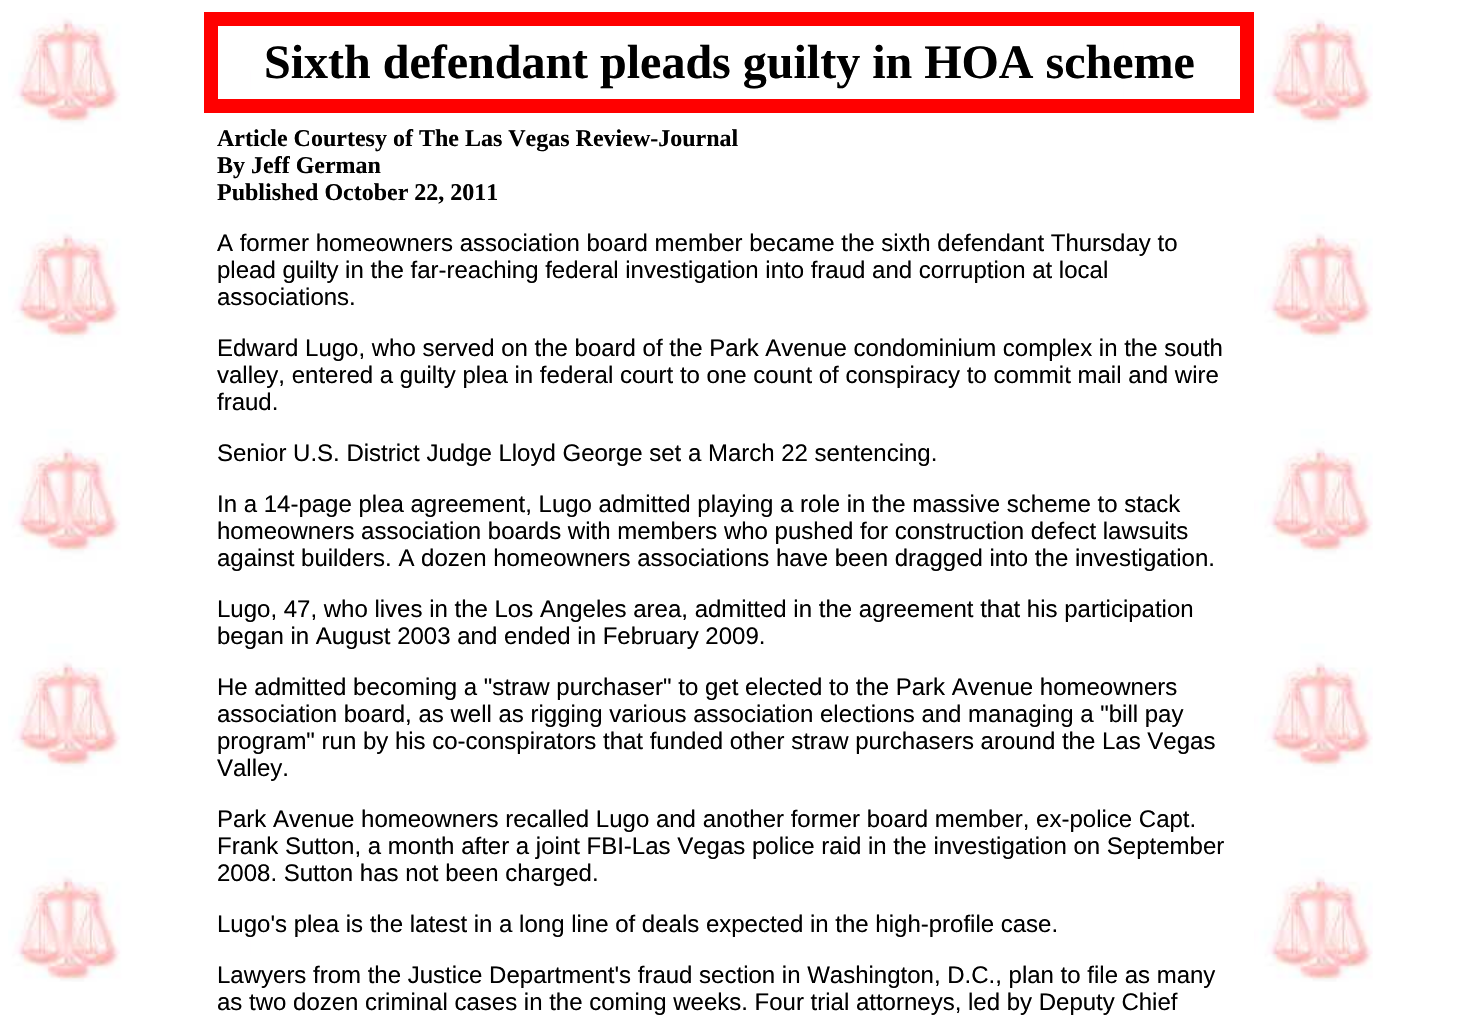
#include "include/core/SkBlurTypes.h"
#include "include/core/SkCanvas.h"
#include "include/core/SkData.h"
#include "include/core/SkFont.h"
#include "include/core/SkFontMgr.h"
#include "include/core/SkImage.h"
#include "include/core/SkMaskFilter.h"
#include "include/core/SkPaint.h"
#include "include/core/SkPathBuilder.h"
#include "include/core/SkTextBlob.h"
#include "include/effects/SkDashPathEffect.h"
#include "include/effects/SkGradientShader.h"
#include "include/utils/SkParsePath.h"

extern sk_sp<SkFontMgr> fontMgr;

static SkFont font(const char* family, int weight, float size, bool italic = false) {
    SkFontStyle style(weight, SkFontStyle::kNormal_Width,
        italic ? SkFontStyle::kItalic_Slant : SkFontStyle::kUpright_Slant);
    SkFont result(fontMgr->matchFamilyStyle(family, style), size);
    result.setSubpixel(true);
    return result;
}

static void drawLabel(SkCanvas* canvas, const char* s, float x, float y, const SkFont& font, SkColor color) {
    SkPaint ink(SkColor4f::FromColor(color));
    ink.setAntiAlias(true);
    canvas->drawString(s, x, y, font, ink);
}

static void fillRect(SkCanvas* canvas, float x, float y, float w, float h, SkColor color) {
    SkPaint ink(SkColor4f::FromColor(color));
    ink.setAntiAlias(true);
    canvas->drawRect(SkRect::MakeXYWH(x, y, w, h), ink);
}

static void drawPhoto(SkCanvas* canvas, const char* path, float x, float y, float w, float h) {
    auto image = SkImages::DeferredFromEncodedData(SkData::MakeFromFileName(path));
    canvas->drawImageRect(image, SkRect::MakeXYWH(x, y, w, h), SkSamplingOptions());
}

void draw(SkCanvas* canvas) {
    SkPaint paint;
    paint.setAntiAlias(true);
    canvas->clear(0xFFFFFFFF);
    drawPhoto(canvas, "assets/img1.png", 8, 13, 1365, 969);
    fillRect(canvas, 251, 26, 872, 73, 0xFFFFFFFF);
    paint.setStroke(true);
    paint.setStrokeWidth(12);
    paint.setColor(0xFFFF0000);
    canvas->drawRect(SkRect::MakeXYWH(210, 18, 1038, 89), paint);
    paint.setStrokeWidth(2);
    canvas->drawRect(SkRect::MakeXYWH(217, 25, 1024, 75), paint);
    SkFont font1 = font("Liberation Serif", 700, 48);
    drawLabel(canvas, "Sixth defendant pleads guilty in HOA scheme", 264, 78, font1, 0xFF000000);
    fillRect(canvas, 251, 113, 1003, 869, 0xFFFFFFFF);
    SkFont font2 = font("Liberation Serif", 700, 24);
    drawLabel(canvas, "Article Courtesy of The Las Vegas Review-Journal", 217, 146, font2, 0xFF000000);
    drawLabel(canvas, "By Jeff German", 217, 173, font2, 0xFF000000);
    drawLabel(canvas, "Published October 22, 2011", 217, 200, font2, 0xFF000000);
    SkFont font3 = font("Liberation Sans", 400, 24);
    drawLabel(canvas, "A former homeowners association board member became the sixth defendant Thursday to", 217, 251, font3, 0xFF000000);
    drawLabel(canvas, "plead guilty in the far-reaching federal investigation into fraud and corruption at local", 217, 278, font3, 0xFF000000);
    drawLabel(canvas, "associations.", 217, 305, font3, 0xFF000000);
    drawLabel(canvas, "Edward Lugo, who served on the board of the Park Avenue condominium complex in the south", 217, 356, font3, 0xFF000000);
    drawLabel(canvas, "valley, entered a guilty plea in federal court to one count of conspiracy to commit mail and wire", 217, 383, font3, 0xFF000000);
    drawLabel(canvas, "fraud.", 217, 410, font3, 0xFF000000);
    drawLabel(canvas, "Senior U.S. District Judge Lloyd George set a March 22 sentencing.", 217, 461, font3, 0xFF000000);
    drawLabel(canvas, "In a 14-page plea agreement, Lugo admitted playing a role in the massive scheme to stack", 217, 512, font3, 0xFF000000);
    drawLabel(canvas, "homeowners association boards with members who pushed for construction defect lawsuits", 217, 539, font3, 0xFF000000);
    drawLabel(canvas, "against builders. A dozen homeowners associations have been dragged into the investigation.", 217, 566, font3, 0xFF000000);
    drawLabel(canvas, "Lugo, 47, who lives in the Los Angeles area, admitted in the agreement that his participation", 217, 617, font3, 0xFF000000);
    drawLabel(canvas, "began in August 2003 and ended in February 2009.", 217, 644, font3, 0xFF000000);
    drawLabel(canvas, "He admitted becoming a \"straw purchaser\" to get elected to the Park Avenue homeowners", 217, 695, font3, 0xFF000000);
    drawLabel(canvas, "association board, as well as rigging various association elections and managing a \"bill pay", 217, 722, font3, 0xFF000000);
    drawLabel(canvas, "program\" run by his co-conspirators that funded other straw purchasers around the Las Vegas", 217, 749, font3, 0xFF000000);
    drawLabel(canvas, "Valley.", 217, 776, font3, 0xFF000000);
    drawLabel(canvas, "Park Avenue homeowners recalled Lugo and another former board member, ex-police Capt.", 217, 827, font3, 0xFF000000);
    drawLabel(canvas, "Frank Sutton, a month after a joint FBI-Las Vegas police raid in the investigation on September", 217, 854, font3, 0xFF000000);
    drawLabel(canvas, "2008. Sutton has not been charged.", 217, 881, font3, 0xFF000000);
    drawLabel(canvas, "Lugo's plea is the latest in a long line of deals expected in the high-profile case.", 217, 932, font3, 0xFF000000);
    drawLabel(canvas, "Lawyers from the Justice Department's fraud section in Washington, D.C., plan to file as many", 217, 983, font3, 0xFF000000);
    drawLabel(canvas, "as two dozen criminal cases in the coming weeks. Four trial attorneys, led by Deputy Chief", 217, 1010, font3, 0xFF000000);
}
